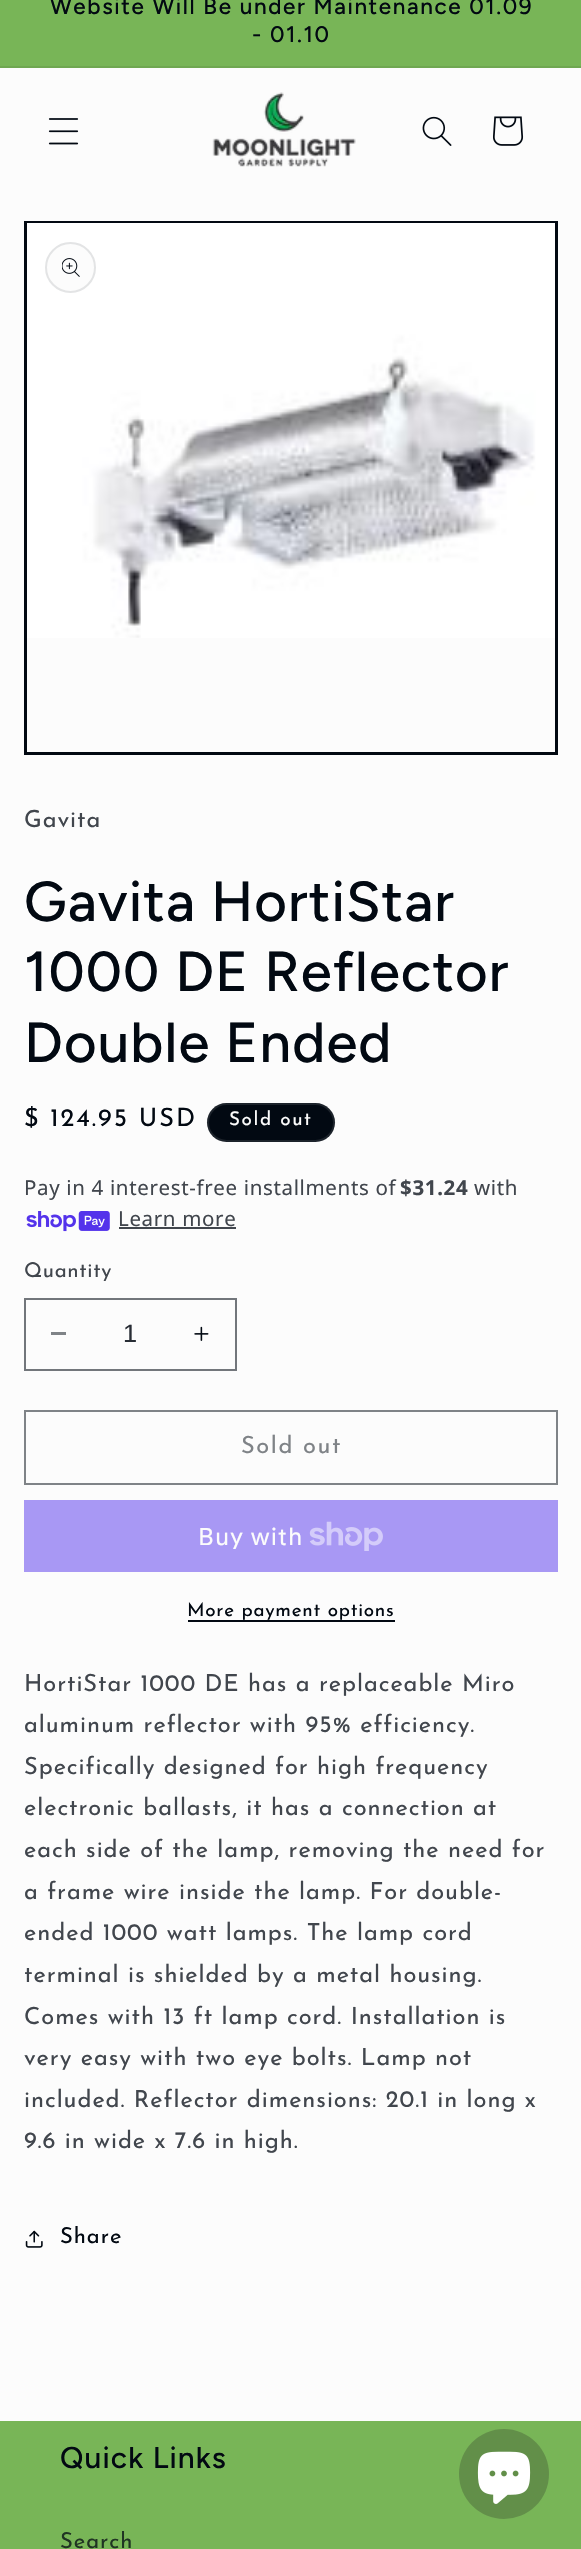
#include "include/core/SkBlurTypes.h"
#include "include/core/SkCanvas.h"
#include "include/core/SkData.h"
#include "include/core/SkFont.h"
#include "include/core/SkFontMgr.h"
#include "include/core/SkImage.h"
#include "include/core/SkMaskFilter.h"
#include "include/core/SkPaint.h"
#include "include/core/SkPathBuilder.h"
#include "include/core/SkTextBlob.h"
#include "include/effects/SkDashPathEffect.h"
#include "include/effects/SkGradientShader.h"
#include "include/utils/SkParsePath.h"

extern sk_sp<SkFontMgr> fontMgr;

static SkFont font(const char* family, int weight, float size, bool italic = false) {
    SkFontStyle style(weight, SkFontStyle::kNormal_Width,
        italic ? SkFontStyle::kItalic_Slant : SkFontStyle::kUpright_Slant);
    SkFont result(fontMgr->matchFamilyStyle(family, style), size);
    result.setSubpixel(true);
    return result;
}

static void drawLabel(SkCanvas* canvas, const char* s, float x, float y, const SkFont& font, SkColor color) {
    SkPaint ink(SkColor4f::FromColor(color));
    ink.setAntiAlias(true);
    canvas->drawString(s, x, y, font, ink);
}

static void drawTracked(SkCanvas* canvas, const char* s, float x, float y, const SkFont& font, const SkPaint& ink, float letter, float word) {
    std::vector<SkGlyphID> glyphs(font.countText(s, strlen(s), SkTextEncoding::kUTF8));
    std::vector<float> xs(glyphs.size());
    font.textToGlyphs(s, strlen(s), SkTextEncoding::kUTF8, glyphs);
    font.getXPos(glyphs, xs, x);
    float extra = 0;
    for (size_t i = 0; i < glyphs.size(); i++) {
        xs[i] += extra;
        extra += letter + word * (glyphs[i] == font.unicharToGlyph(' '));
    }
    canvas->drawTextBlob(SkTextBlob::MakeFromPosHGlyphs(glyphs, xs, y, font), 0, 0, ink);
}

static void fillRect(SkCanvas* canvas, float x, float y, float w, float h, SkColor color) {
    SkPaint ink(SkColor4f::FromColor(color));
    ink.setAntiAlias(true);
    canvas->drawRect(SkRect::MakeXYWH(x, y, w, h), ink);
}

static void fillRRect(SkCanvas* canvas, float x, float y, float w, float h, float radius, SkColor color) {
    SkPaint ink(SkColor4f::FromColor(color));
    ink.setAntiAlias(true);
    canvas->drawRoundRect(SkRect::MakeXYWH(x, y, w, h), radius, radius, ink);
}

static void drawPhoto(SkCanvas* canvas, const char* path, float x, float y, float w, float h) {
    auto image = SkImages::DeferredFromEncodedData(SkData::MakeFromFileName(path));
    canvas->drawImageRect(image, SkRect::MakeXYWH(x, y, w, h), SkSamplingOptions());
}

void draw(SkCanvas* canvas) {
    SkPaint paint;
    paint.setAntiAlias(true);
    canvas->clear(0xFFFCFCFC);
    fillRect(canvas, 0, 0, 581, 66, 0xFF78B557);
    fillRect(canvas, 0, 66, 581, 2, 0xFF6FA751);
    SkFont font1 = font("Figtree", 500, 22.5f);
    paint.setColor(0xFF020912);
    drawTracked(canvas, "Website Will Be under Maintenance 01.09", 50, 14, font1, paint, 1.6f, 0);
    drawTracked(canvas, "- 01.10", 252, 42, font1, paint, 1.6f, 0);
    drawPhoto(canvas, "assets/img1.png", 48, 118, 31, 27);
    drawPhoto(canvas, "assets/img2.png", 212, 92, 144, 75);
    drawPhoto(canvas, "assets/img3.png", 422, 116, 30, 30);
    drawPhoto(canvas, "assets/img4.png", 493, 116, 31, 30);
    paint.setStroke(true);
    paint.setStrokeWidth(3);
    canvas->drawRect(SkRect::MakeXYWH(25.5f, 222.5f, 531, 531), paint);
    drawPhoto(canvas, "assets/img5.png", 27, 223, 528, 415);
    paint.setStroke(false);
    paint.setColor(0xFFFCFCFC);
    canvas->drawCircle(70.5f, 267.5f, 24.5f, paint);
    paint.setStroke(true);
    paint.setStrokeWidth(2);
    paint.setColor(0xFFE3E4E5);
    canvas->drawCircle(70.5f, 267.5f, 24.5f, paint);
    drawPhoto(canvas, "assets/img6.png", 62, 258, 18, 19);
    SkFont font2 = font("Josefin Sans", 400, 23.6f);
    paint.setStroke(false);
    paint.setColor(0xFF41464D);
    drawTracked(canvas, "Gavita", 24, 827, font2, paint, 0.95f, 0);
    SkFont font3 = font("Figtree", 500, 56.25f);
    paint.setColor(0xFF020912);
    drawTracked(canvas, "Gavita HortiStar", 24, 921, font3, paint, 1.1f, 0);
    drawTracked(canvas, "1000 DE Reflector", 24, 991, font3, paint, 1.1f, 0);
    drawTracked(canvas, "Double Ended", 24, 1062, font3, paint, 1.1f, 0);
    SkFont font4 = font("Josefin Sans", 400, 25.25f);
    drawTracked(canvas, "$ 124.95 USD", 24, 1126, font4, paint, 2, 0);
    fillRRect(canvas, 207, 1103, 128, 39, 19.5f, 0xFF020912);
    paint.setStroke(true);
    paint.setColor(0x1AFCFCFC);
    canvas->drawRoundRect(SkRect::MakeXYWH(208, 1104, 126, 37), 18.5f, 18.5f, paint);
    SkFont font5 = font("Josefin Sans", 400, 18.9f);
    paint.setStroke(false);
    paint.setColor(0xFFFCFCFC);
    drawTracked(canvas, "Sold out", 229, 1125, font5, paint, 1.6f, 0);
    SkFont font6 = font("Noto Sans", 400, 20.5f);
    paint.setColor(0xFF41464D);
    drawTracked(canvas, "Pay in 4 interest-free installments of", 24, 1195, font6, paint, 0.65f, 0);
    SkFont font7 = font("Noto Sans", 700, 20.5f);
    drawTracked(canvas, "$31.24", 400, 1195, font7, paint, 0.65f, 0);
    drawTracked(canvas, "with", 474, 1195, font6, paint, 0.65f, 0);
    drawPhoto(canvas, "assets/img7.png", 26, 1211, 84, 21);
    drawTracked(canvas, "Learn more", 118, 1226, font6, paint, 0.65f, 0);
    fillRect(canvas, 119, 1227, 117, 2, 0xFF41464D);
    SkFont font8 = font("Josefin Sans", 400, 20.5f);
    drawTracked(canvas, "Quantity", 24, 1277, font8, paint, 0.65f, 0);
    fillRect(canvas, 51, 1332, 15, 3, 0xFF7F8387);
    drawPhoto(canvas, "assets/img8.png", 194, 1326, 15, 15);
    paint.setStroke(true);
    paint.setColor(0xFF72767B);
    canvas->drawRect(SkRect::MakeXYWH(25, 1299, 211, 71), paint);
    SkFont font9 = font("Liberation Sans", 400, 25.25f);
    drawLabel(canvas, "1", 123, 1342, font9, 0xFF282D35);
    paint.setColor(0xFF7F8387);
    canvas->drawRect(SkRect::MakeXYWH(25, 1411, 532, 73), paint);
    paint.setStroke(false);
    drawTracked(canvas, "Sold out", 241, 1453, font2, paint, 1.6f, 0);
    fillRect(canvas, 24, 1500, 534, 72, 0xFFA898F4);
    SkFont font10 = font("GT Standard", 400, 24);
    paint.setColor(0xFFFCFCFC);
    drawTracked(canvas, "Buy with", 198, 1545, font10, paint, 0.95f, 0);
    drawPhoto(canvas, "assets/img9.png", 309, 1521, 74, 30);
    paint.setColor(0xFF020912);
    drawTracked(canvas, "More payment options", 187, 1616, font5, paint, 0.75f, 0);
    fillRect(canvas, 188, 1620, 207, 2, 0xFF020912);
    paint.setColor(0xFF41464D);
    drawTracked(canvas, "HortiStar 1000 DE has a replaceable Miro", 24, 1691, font2, paint, 0.95f, 0);
    drawTracked(canvas, "aluminum reflector with 95% efficiency.", 24, 1732, font2, paint, 0.95f, 0);
    drawTracked(canvas, "Specifically designed for high frequency", 24, 1774, font2, paint, 0.95f, 0);
    drawTracked(canvas, "electronic ballasts, it has a connection at", 24, 1815, font2, paint, 0.95f, 0);
    drawTracked(canvas, "each side of the lamp, removing the need for", 24, 1857, font2, paint, 0.95f, 0);
    drawTracked(canvas, "a frame wire inside the lamp. For double-", 24, 1899, font2, paint, 0.95f, 0);
    drawTracked(canvas, "ended 1000 watt lamps. The lamp cord", 24, 1940, font2, paint, 0.95f, 0);
    drawTracked(canvas, "terminal is shielded by a metal housing.", 24, 1982, font2, paint, 0.95f, 0);
    drawTracked(canvas, "Comes with 13 ft lamp cord. Installation is", 24, 2024, font2, paint, 0.95f, 0);
    drawTracked(canvas, "very easy with two eye bolts. Lamp not", 24, 2065, font2, paint, 0.95f, 0);
    drawTracked(canvas, "included. Reflector dimensions: 20.1 in long x", 24, 2107, font2, paint, 0.95f, 0);
    drawTracked(canvas, "9.6 in wide x 7.6 in high.", 24, 2148, font2, paint, 0.95f, 0);
    drawPhoto(canvas, "assets/img10.png", 25, 2230, 18, 18);
    SkFont font11 = font("Josefin Sans", 400, 22);
    paint.setColor(0xFF020912);
    drawTracked(canvas, "Share", 60, 2243, font11, paint, 0.95f, 0);
    fillRect(canvas, 0, 2421, 581, 128, 0xFF78B557);
    SkFont font12 = font("Figtree", 500, 30);
    drawTracked(canvas, "Quick Links", 60, 2468, font12, paint, 1.1f, 0);
    paint.setColor(0xFF203423);
    drawTracked(canvas, "Search", 60, 2548, font11, paint, 0.95f, 0);
    paint.setColor(0xFF628F49);
    canvas->drawCircle(504, 2474, 45, paint);
    drawPhoto(canvas, "assets/img11.png", 477, 2451, 54, 53);
}
